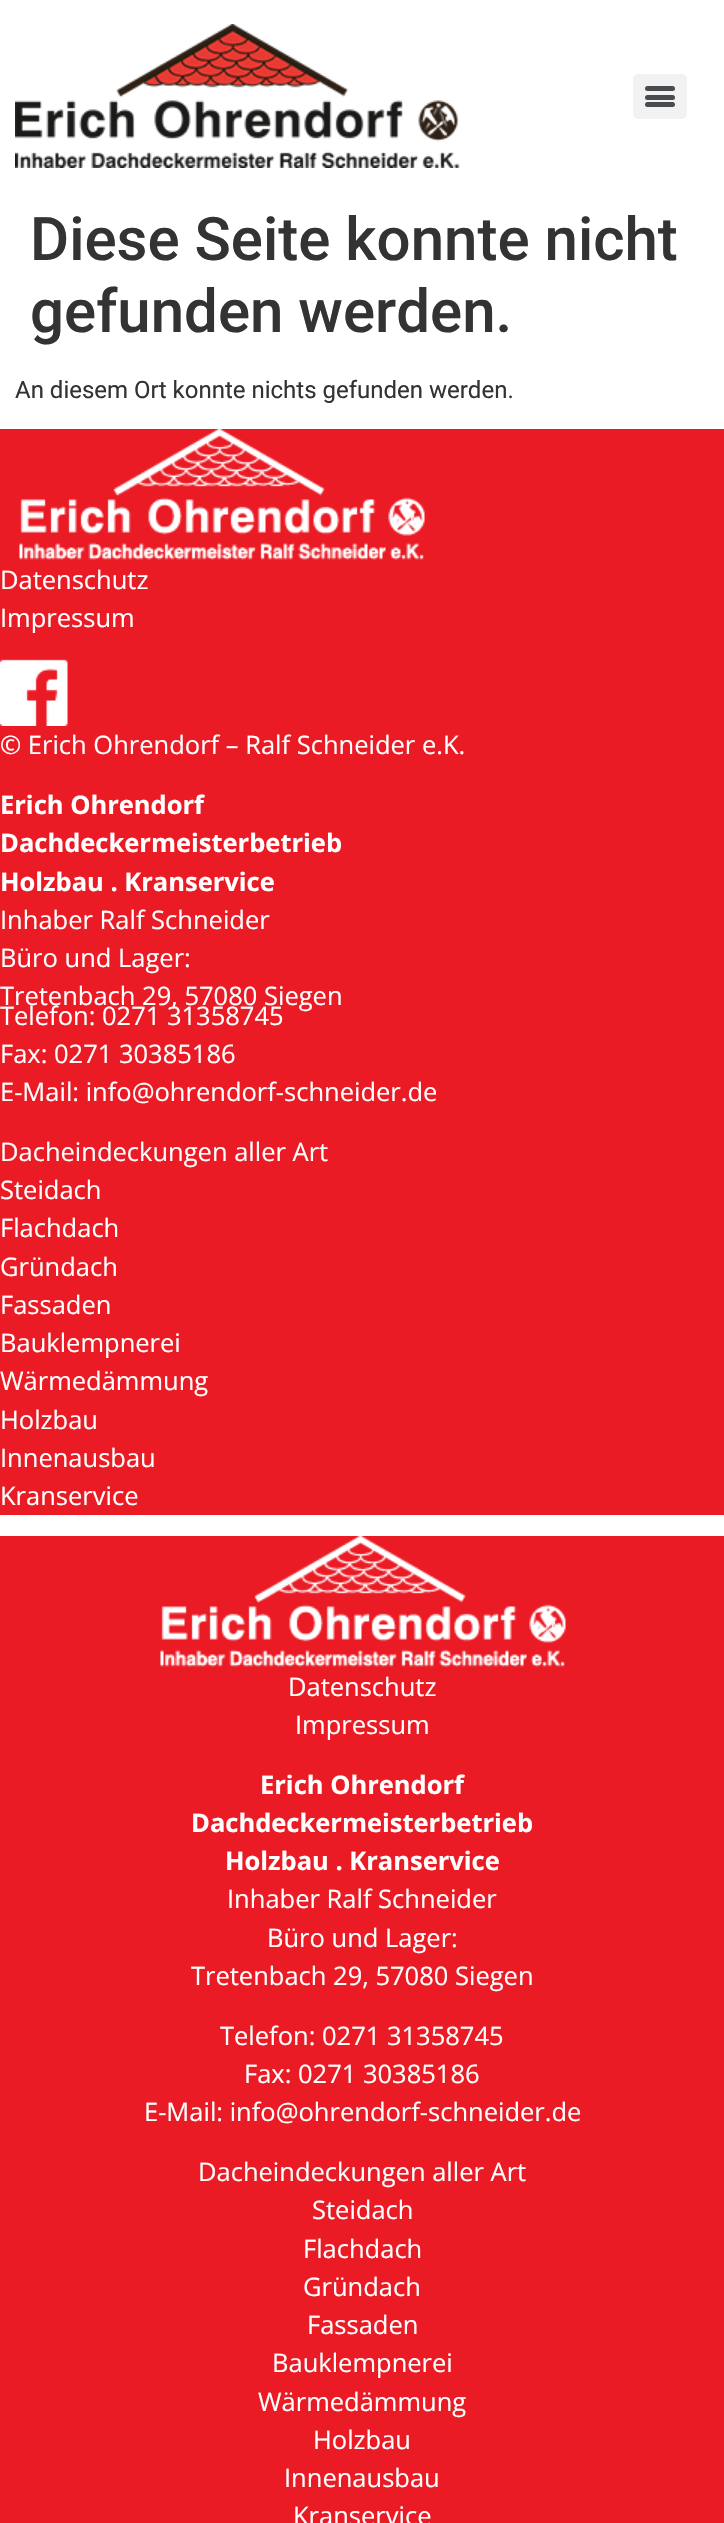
#include "include/core/SkBlurTypes.h"
#include "include/core/SkCanvas.h"
#include "include/core/SkData.h"
#include "include/core/SkFont.h"
#include "include/core/SkFontMgr.h"
#include "include/core/SkImage.h"
#include "include/core/SkMaskFilter.h"
#include "include/core/SkPaint.h"
#include "include/core/SkPathBuilder.h"
#include "include/core/SkTextBlob.h"
#include "include/effects/SkDashPathEffect.h"
#include "include/effects/SkGradientShader.h"
#include "include/utils/SkParsePath.h"

extern sk_sp<SkFontMgr> fontMgr;

static SkFont font(const char* family, int weight, float size, bool italic = false) {
    SkFontStyle style(weight, SkFontStyle::kNormal_Width,
        italic ? SkFontStyle::kItalic_Slant : SkFontStyle::kUpright_Slant);
    SkFont result(fontMgr->matchFamilyStyle(family, style), size);
    result.setSubpixel(true);
    return result;
}

static void drawLabel(SkCanvas* canvas, const char* s, float x, float y, const SkFont& font, SkColor color) {
    SkPaint ink(SkColor4f::FromColor(color));
    ink.setAntiAlias(true);
    canvas->drawString(s, x, y, font, ink);
}

static void fillRect(SkCanvas* canvas, float x, float y, float w, float h, SkColor color) {
    SkPaint ink(SkColor4f::FromColor(color));
    ink.setAntiAlias(true);
    canvas->drawRect(SkRect::MakeXYWH(x, y, w, h), ink);
}

static void fillRRect(SkCanvas* canvas, float x, float y, float w, float h, float radius, SkColor color) {
    SkPaint ink(SkColor4f::FromColor(color));
    ink.setAntiAlias(true);
    canvas->drawRoundRect(SkRect::MakeXYWH(x, y, w, h), radius, radius, ink);
}

static void drawPhoto(SkCanvas* canvas, const char* path, float x, float y, float w, float h) {
    auto image = SkImages::DeferredFromEncodedData(SkData::MakeFromFileName(path));
    canvas->drawImageRect(image, SkRect::MakeXYWH(x, y, w, h), SkSamplingOptions());
}

void draw(SkCanvas* canvas) {
    SkPaint paint;
    paint.setAntiAlias(true);
    canvas->clear(0xFFFFFFFF);
    drawPhoto(canvas, "assets/img1.png", 15, 24, 445, 144);
    fillRRect(canvas, 633, 74, 54, 45, 5, 0xFFF2F2F2);
    fillRRect(canvas, 645, 95, 30, 5, 2.5f, 0xFF494C4F);
    fillRRect(canvas, 645, 86, 30, 5, 2.5f, 0xFF494C4F);
    fillRRect(canvas, 645, 102, 30, 5, 2.5f, 0xFF494C4F);
    SkFont font1 = font("Roboto", 500, 60);
    drawLabel(canvas, "Diese Seite konnte nicht", 30, 260, font1, 0xFF333333);
    drawLabel(canvas, "gefunden werden.", 30, 332, font1, 0xFF333333);
    SkFont font2 = font("Roboto", 400, 24);
    drawLabel(canvas, "An diesem Ort konnte nichts gefunden werden.", 15, 398, font2, 0xFF333333);
    fillRect(canvas, 0, 429, 724, 1086, 0xFFEA1B24);
    drawPhoto(canvas, "assets/img2.png", 19, 429, 406, 131);
    SkFont font3 = font("Open Sans", 400, 25.5f);
    drawLabel(canvas, "Datenschutz", 0, 589, font3, 0xFFFFFFFF);
    drawLabel(canvas, "Impressum", 0, 627, font3, 0xFFFFFFFF);
    drawPhoto(canvas, "assets/img3.png", 0, 659, 68, 67);
    drawLabel(canvas, "© Erich Ohrendorf – Ralf Schneider e.K.", 0, 754, font3, 0xFFFFFFFF);
    SkFont font4 = font("Open Sans", 700, 25.5f);
    drawLabel(canvas, "Erich Ohrendorf", 0, 814, font4, 0xFFFFFFFF);
    drawLabel(canvas, "Dachdeckermeisterbetrieb", 0, 852, font4, 0xFFFFFFFF);
    drawLabel(canvas, "Holzbau . Kranservice", 0, 891, font4, 0xFFFFFFFF);
    drawLabel(canvas, "Inhaber Ralf Schneider", 0, 929, font3, 0xFFFFFFFF);
    drawLabel(canvas, "Büro und Lager:", 0, 967, font3, 0xFFFFFFFF);
    drawLabel(canvas, "Tretenbach 29, 57080 Siegen", 0, 1005, font3, 0xFFFFFFFF);
    drawLabel(canvas, "Telefon: 0271 31358745", 0, 1025, font3, 0xFFFFFFFF);
    drawLabel(canvas, "Fax: 0271 30385186", 0, 1063, font3, 0xFFFFFFFF);
    drawLabel(canvas, "E-Mail: info@ohrendorf-schneider.de", 0, 1101, font3, 0xFFFFFFFF);
    drawLabel(canvas, "Dacheindeckungen aller Art", 0, 1161, font3, 0xFFFFFFFF);
    drawLabel(canvas, "Steidach", 0, 1199, font3, 0xFFFFFFFF);
    drawLabel(canvas, "Flachdach", 0, 1237, font3, 0xFFFFFFFF);
    drawLabel(canvas, "Gründach", 0, 1276, font3, 0xFFFFFFFF);
    drawLabel(canvas, "Fassaden", 0, 1314, font3, 0xFFFFFFFF);
    drawLabel(canvas, "Bauklempnerei", 0, 1352, font3, 0xFFFFFFFF);
    drawLabel(canvas, "Wärmedämmung", 0, 1390, font3, 0xFFFFFFFF);
    drawLabel(canvas, "Holzbau", 0, 1429, font3, 0xFFFFFFFF);
    drawLabel(canvas, "Innenausbau", 0, 1467, font3, 0xFFFFFFFF);
    drawLabel(canvas, "Kranservice", 0, 1505, font3, 0xFFFFFFFF);
    fillRect(canvas, 0, 1536, 724, 987, 0xFFEA1B24);
    drawPhoto(canvas, "assets/img2.png", 160, 1536, 406, 131);
    drawLabel(canvas, "Datenschutz", 288, 1696, font3, 0xFFFFFFFF);
    drawLabel(canvas, "Impressum", 295, 1734, font3, 0xFFFFFFFF);
    drawLabel(canvas, "Erich Ohrendorf", 260, 1794, font4, 0xFFFFFFFF);
    drawLabel(canvas, "Dachdeckermeisterbetrieb", 191, 1832, font4, 0xFFFFFFFF);
    drawLabel(canvas, "Holzbau . Kranservice", 225, 1870, font4, 0xFFFFFFFF);
    drawLabel(canvas, "Inhaber Ralf Schneider", 227, 1908, font3, 0xFFFFFFFF);
    drawLabel(canvas, "Büro und Lager:", 267, 1947, font3, 0xFFFFFFFF);
    drawLabel(canvas, "Tretenbach 29, 57080 Siegen", 191, 1985, font3, 0xFFFFFFFF);
    drawLabel(canvas, "Telefon: 0271 31358745", 220, 2045, font3, 0xFFFFFFFF);
    drawLabel(canvas, "Fax: 0271 30385186", 244, 2083, font3, 0xFFFFFFFF);
    drawLabel(canvas, "E-Mail: info@ohrendorf-schneider.de", 144, 2121, font3, 0xFFFFFFFF);
    drawLabel(canvas, "Dacheindeckungen aller Art", 198, 2181, font3, 0xFFFFFFFF);
    drawLabel(canvas, "Steidach", 312, 2219, font3, 0xFFFFFFFF);
    drawLabel(canvas, "Flachdach", 303, 2258, font3, 0xFFFFFFFF);
    drawLabel(canvas, "Gründach", 303, 2296, font3, 0xFFFFFFFF);
    drawLabel(canvas, "Fassaden", 307, 2334, font3, 0xFFFFFFFF);
    drawLabel(canvas, "Bauklempnerei", 272, 2372, font3, 0xFFFFFFFF);
    drawLabel(canvas, "Wärmedämmung", 258, 2411, font3, 0xFFFFFFFF);
    drawLabel(canvas, "Holzbau", 313, 2449, font3, 0xFFFFFFFF);
    drawLabel(canvas, "Innenausbau", 284, 2487, font3, 0xFFFFFFFF);
    drawLabel(canvas, "Kranservice", 293, 2525, font3, 0xFFFFFFFF);
}
